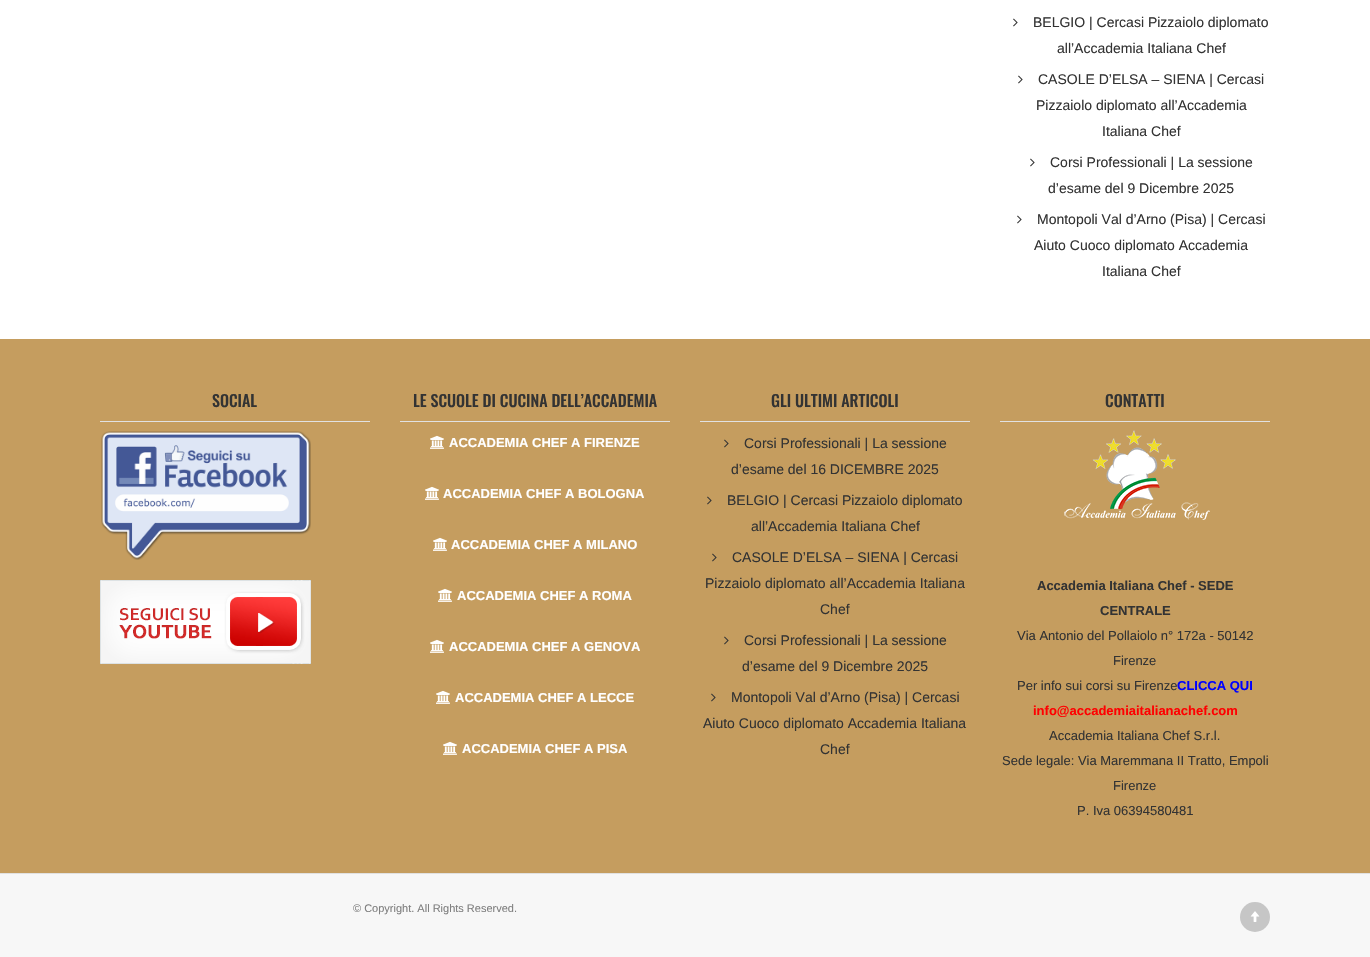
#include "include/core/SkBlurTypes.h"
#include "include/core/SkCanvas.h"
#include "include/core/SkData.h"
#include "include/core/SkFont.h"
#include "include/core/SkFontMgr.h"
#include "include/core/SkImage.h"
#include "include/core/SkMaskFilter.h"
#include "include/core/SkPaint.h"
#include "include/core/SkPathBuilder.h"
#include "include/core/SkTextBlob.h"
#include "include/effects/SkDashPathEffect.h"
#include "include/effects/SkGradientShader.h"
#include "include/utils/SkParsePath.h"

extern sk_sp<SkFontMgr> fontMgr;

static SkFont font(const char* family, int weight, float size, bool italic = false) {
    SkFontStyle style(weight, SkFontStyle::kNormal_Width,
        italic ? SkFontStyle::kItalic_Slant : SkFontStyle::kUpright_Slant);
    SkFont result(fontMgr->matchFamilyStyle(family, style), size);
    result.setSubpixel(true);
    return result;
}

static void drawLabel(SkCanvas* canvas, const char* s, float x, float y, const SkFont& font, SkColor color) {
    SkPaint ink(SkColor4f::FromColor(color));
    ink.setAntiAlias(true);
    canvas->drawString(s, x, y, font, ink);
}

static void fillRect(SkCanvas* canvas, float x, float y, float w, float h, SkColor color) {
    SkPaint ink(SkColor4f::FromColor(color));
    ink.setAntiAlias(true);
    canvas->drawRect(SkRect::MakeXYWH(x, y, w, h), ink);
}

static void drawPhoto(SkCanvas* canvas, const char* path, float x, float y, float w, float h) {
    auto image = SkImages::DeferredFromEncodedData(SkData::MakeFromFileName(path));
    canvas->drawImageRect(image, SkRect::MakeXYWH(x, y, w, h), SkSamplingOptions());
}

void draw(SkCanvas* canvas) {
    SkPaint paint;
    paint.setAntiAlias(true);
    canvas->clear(0xFFFFFFFF);
    drawPhoto(canvas, "assets/img1.png", 1013, 18, 5, 9);
    SkFont font1 = font("Arimo", 400, 14);
    drawLabel(canvas, "BELGIO | Cercasi Pizzaiolo diplomato", 1033, 27, font1, 0xFF333333);
    drawLabel(canvas, "all’Accademia Italiana Chef", 1057, 53, font1, 0xFF333333);
    drawPhoto(canvas, "assets/img1.png", 1018, 75, 5, 9);
    drawLabel(canvas, "CASOLE D’ELSA – SIENA | Cercasi", 1038, 84, font1, 0xFF333333);
    drawLabel(canvas, "Pizzaiolo diplomato all’Accademia", 1036, 110, font1, 0xFF333333);
    drawLabel(canvas, "Italiana Chef", 1102, 136, font1, 0xFF333333);
    drawPhoto(canvas, "assets/img1.png", 1030, 158, 5, 9);
    drawLabel(canvas, "Corsi Professionali | La sessione", 1050, 167, font1, 0xFF333333);
    drawLabel(canvas, "d’esame del 9 Dicembre 2025", 1048, 193, font1, 0xFF333333);
    drawPhoto(canvas, "assets/img1.png", 1017, 215, 5, 9);
    drawLabel(canvas, "Montopoli Val d’Arno (Pisa) | Cercasi", 1037, 224, font1, 0xFF333333);
    drawLabel(canvas, "Aiuto Cuoco diplomato Accademia", 1034, 250, font1, 0xFF333333);
    drawLabel(canvas, "Italiana Chef", 1102, 276, font1, 0xFF333333);
    fillRect(canvas, 0, 339, 1370, 534, 0xFFC59D5F);
    fillRect(canvas, 100, 421, 270, 1, 0xFFE1E1E1);
    SkFont font2 = font("Oswald", 500, 16);
    drawLabel(canvas, "SOCIAL", 212, 407, font2, 0xFF333333);
    drawPhoto(canvas, "assets/img2.png", 101, 431, 210, 129);
    drawPhoto(canvas, "assets/img3.png", 100, 580, 211, 84);
    fillRect(canvas, 400, 421, 270, 1, 0xFFE1E1E1);
    drawLabel(canvas, "LE SCUOLE DI CUCINA DELL’ACCADEMIA", 413, 407, font2, 0xFF333333);
    drawPhoto(canvas, "assets/img4.png", 430, 435, 14, 14);
    SkFont font3 = font("Arimo", 700, 13);
    drawLabel(canvas, "ACCADEMIA CHEF A FIRENZE", 449, 447, font3, 0xFFFFFFFF);
    drawPhoto(canvas, "assets/img4.png", 425, 486, 14, 14);
    drawLabel(canvas, "ACCADEMIA CHEF A BOLOGNA", 443, 498, font3, 0xFFFFFFFF);
    drawPhoto(canvas, "assets/img4.png", 433, 537, 14, 14);
    drawLabel(canvas, "ACCADEMIA CHEF A MILANO", 451, 549, font3, 0xFFFFFFFF);
    drawPhoto(canvas, "assets/img4.png", 438, 588, 14, 14);
    drawLabel(canvas, "ACCADEMIA CHEF A ROMA", 457, 600, font3, 0xFFFFFFFF);
    drawPhoto(canvas, "assets/img4.png", 430, 639, 14, 14);
    drawLabel(canvas, "ACCADEMIA CHEF A GENOVA", 449, 651, font3, 0xFFFFFFFF);
    drawPhoto(canvas, "assets/img4.png", 436, 690, 14, 14);
    drawLabel(canvas, "ACCADEMIA CHEF A LECCE", 455, 702, font3, 0xFFFFFFFF);
    drawPhoto(canvas, "assets/img4.png", 443, 741, 14, 14);
    drawLabel(canvas, "ACCADEMIA CHEF A PISA", 462, 753, font3, 0xFFFFFFFF);
    fillRect(canvas, 700, 421, 270, 1, 0xFFE1E1E1);
    drawLabel(canvas, "GLI ULTIMI ARTICOLI", 771, 407, font2, 0xFF333333);
    drawPhoto(canvas, "assets/img5.png", 724, 439, 5, 9);
    drawLabel(canvas, "Corsi Professionali | La sessione", 744, 448, font1, 0xFF333333);
    drawLabel(canvas, "d’esame del 16 DICEMBRE 2025", 731, 474, font1, 0xFF333333);
    drawPhoto(canvas, "assets/img5.png", 707, 496, 5, 9);
    drawLabel(canvas, "BELGIO | Cercasi Pizzaiolo diplomato", 727, 505, font1, 0xFF333333);
    drawLabel(canvas, "all’Accademia Italiana Chef", 751, 531, font1, 0xFF333333);
    drawPhoto(canvas, "assets/img5.png", 712, 553, 5, 9);
    drawLabel(canvas, "CASOLE D’ELSA – SIENA | Cercasi", 732, 562, font1, 0xFF333333);
    drawLabel(canvas, "Pizzaiolo diplomato all’Accademia Italiana", 705, 588, font1, 0xFF333333);
    drawLabel(canvas, "Chef", 820, 614, font1, 0xFF333333);
    drawPhoto(canvas, "assets/img5.png", 724, 636, 5, 9);
    drawLabel(canvas, "Corsi Professionali | La sessione", 744, 645, font1, 0xFF333333);
    drawLabel(canvas, "d’esame del 9 Dicembre 2025", 742, 671, font1, 0xFF333333);
    drawPhoto(canvas, "assets/img5.png", 711, 693, 5, 9);
    drawLabel(canvas, "Montopoli Val d’Arno (Pisa) | Cercasi", 731, 702, font1, 0xFF333333);
    drawLabel(canvas, "Aiuto Cuoco diplomato Accademia Italiana", 703, 728, font1, 0xFF333333);
    drawLabel(canvas, "Chef", 820, 754, font1, 0xFF333333);
    fillRect(canvas, 1000, 421, 270, 1, 0xFFE1E1E1);
    drawLabel(canvas, "CONTATTI", 1105, 407, font2, 0xFF333333);
    drawPhoto(canvas, "assets/img6.png", 1064, 430, 146, 90);
    drawLabel(canvas, "Accademia Italiana Chef - SEDE", 1037, 590, font3, 0xFF333333);
    drawLabel(canvas, "CENTRALE", 1100, 615, font3, 0xFF333333);
    SkFont font4 = font("Arimo", 400, 13);
    drawLabel(canvas, "Via Antonio del Pollaiolo n° 172a - 50142", 1017, 640, font4, 0xFF333333);
    drawLabel(canvas, "Firenze", 1113, 665, font4, 0xFF333333);
    drawLabel(canvas, "Per info sui corsi su Firenze", 1017, 690, font4, 0xFF333333);
    drawLabel(canvas, "CLICCA QUI", 1177, 690, font3, 0xFF0000FF);
    drawLabel(canvas, "info@accademiaitalianachef.com", 1033, 715, font3, 0xFFFF0000);
    drawLabel(canvas, "Accademia Italiana Chef S.r.l.", 1049, 740, font4, 0xFF333333);
    drawLabel(canvas, "Sede legale: Via Maremmana II Tratto, Empoli", 1002, 765, font4, 0xFF333333);
    drawLabel(canvas, "Firenze", 1113, 790, font4, 0xFF333333);
    drawLabel(canvas, "P. Iva 06394580481", 1077, 815, font4, 0xFF333333);
    fillRect(canvas, 0, 874, 1370, 83, 0xFFF7F7F7);
    fillRect(canvas, 0, 873, 1370, 1, 0xFFE1E1E1);
    SkFont font5 = font("Arimo", 400, 11);
    drawLabel(canvas, "© Copyright. All Rights Reserved.", 353, 912, font5, 0xFF7F7F7F);
    paint.setColor(0xFFC6C6C6);
    canvas->drawCircle(1255, 917, 15, paint);
    drawPhoto(canvas, "assets/img7.png", 1250, 911, 10, 11);
}
